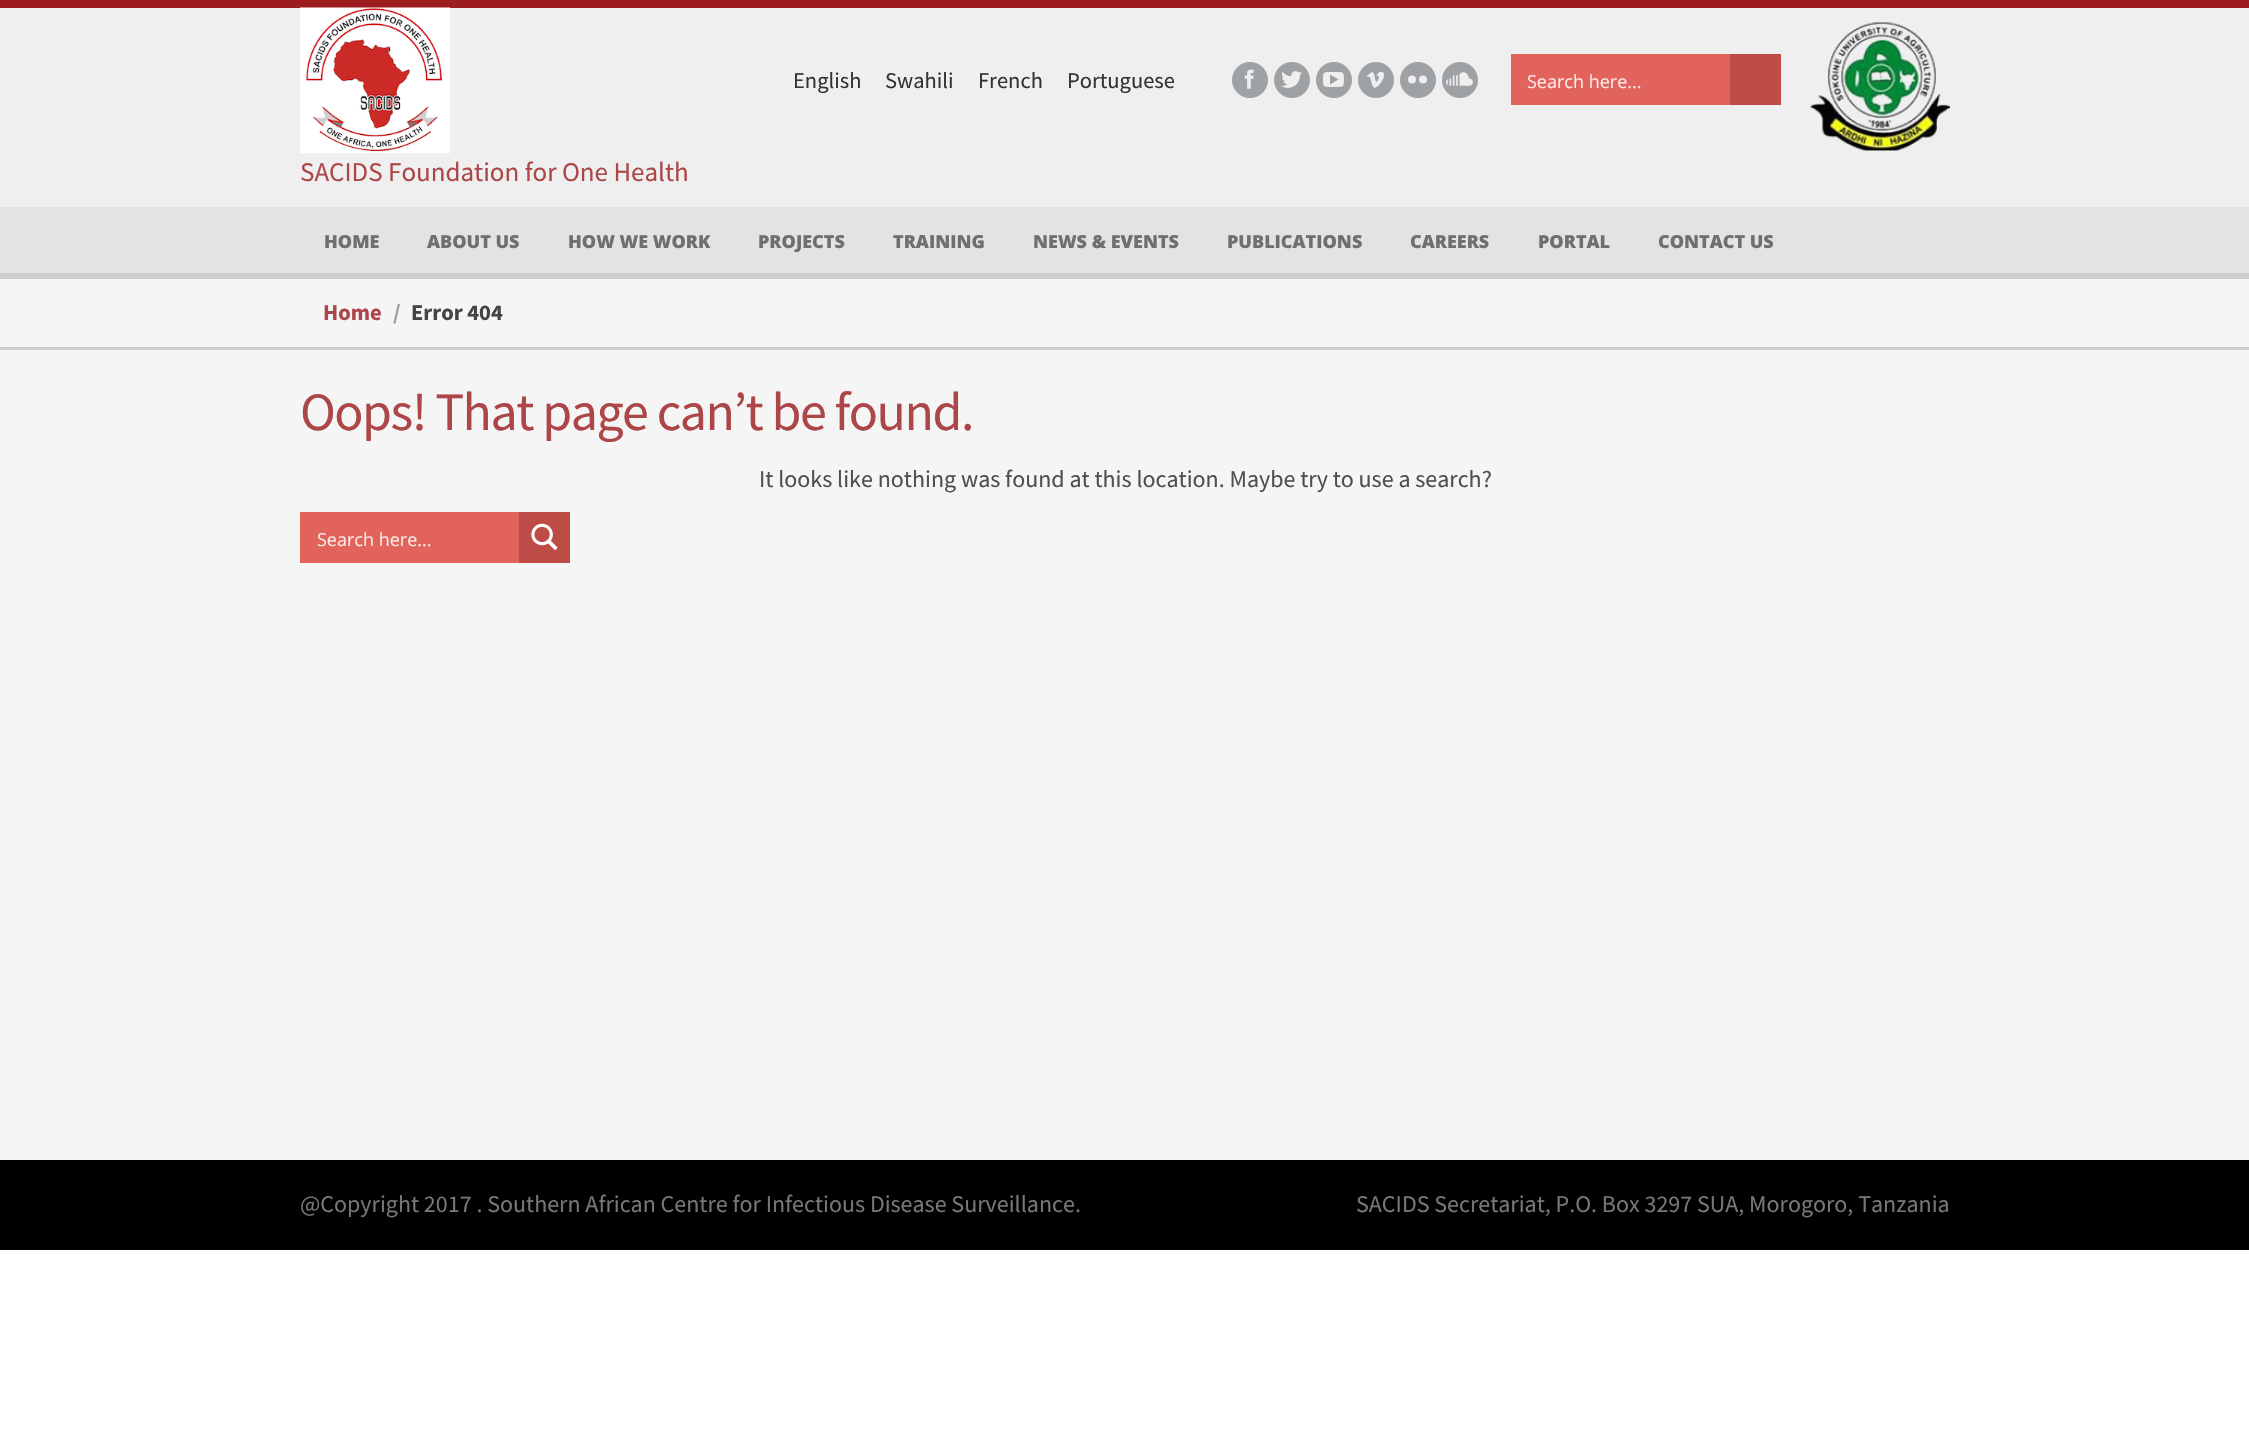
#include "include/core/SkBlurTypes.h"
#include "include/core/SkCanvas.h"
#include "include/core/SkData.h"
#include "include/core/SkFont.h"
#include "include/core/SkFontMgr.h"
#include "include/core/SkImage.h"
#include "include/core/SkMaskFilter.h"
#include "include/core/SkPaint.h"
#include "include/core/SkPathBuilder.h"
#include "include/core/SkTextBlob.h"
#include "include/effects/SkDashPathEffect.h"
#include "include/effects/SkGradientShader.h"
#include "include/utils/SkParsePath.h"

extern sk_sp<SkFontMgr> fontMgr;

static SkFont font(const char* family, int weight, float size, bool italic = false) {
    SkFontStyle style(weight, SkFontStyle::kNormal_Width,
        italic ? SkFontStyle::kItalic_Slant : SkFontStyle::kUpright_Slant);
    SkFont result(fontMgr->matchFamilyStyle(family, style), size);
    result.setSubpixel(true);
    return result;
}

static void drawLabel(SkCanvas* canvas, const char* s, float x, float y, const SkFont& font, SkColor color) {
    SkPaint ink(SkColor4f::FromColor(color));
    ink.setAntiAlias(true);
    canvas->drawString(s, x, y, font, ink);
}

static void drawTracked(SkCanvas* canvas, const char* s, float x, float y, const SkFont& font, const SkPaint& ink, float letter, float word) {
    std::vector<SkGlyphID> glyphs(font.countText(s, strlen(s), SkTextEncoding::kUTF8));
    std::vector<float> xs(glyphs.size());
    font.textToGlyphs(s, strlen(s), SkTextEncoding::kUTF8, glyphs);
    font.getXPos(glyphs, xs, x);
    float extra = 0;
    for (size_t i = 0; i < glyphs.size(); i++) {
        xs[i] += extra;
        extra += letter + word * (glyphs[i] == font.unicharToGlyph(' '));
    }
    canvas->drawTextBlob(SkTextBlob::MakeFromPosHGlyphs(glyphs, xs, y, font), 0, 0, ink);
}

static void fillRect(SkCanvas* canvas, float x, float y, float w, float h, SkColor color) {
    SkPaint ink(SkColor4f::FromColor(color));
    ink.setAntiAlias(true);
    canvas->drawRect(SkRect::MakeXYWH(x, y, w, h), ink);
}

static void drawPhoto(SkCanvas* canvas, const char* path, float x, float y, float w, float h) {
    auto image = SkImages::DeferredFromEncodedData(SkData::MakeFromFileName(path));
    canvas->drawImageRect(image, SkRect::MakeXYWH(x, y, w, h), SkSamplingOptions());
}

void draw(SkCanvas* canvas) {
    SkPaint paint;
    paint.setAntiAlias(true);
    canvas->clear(0xFFFFFFFF);
    fillRect(canvas, 0, 8, 2249, 199, 0xFFEFEFEF);
    fillRect(canvas, 0, 207, 2249, 66, 0xFFE3E3E3);
    fillRect(canvas, 0, 0, 2249, 8, 0xFF9C1C1F);
    fillRect(canvas, 0, 273, 2249, 6, 0xFFCECECE);
    drawPhoto(canvas, "assets/img1.png", 300, 7, 150, 146);
    SkFont font1 = font("Source Sans Pro", 400, 22.5f);
    drawLabel(canvas, "English", 793, 88, font1, 0xFF333333);
    drawLabel(canvas, "Swahili", 885, 88, font1, 0xFF333333);
    drawLabel(canvas, "French", 978, 88, font1, 0xFF333333);
    drawLabel(canvas, "Portuguese", 1067, 88, font1, 0xFF333333);
    paint.setColor(0xFF9FA2A5);
    canvas->drawCircle(1250, 80, 18, paint);
    drawPhoto(canvas, "assets/img2.png", 1244, 69, 10, 20);
    canvas->drawCircle(1292, 80, 18, paint);
    drawPhoto(canvas, "assets/img3.png", 1281, 71, 21, 17);
    canvas->drawCircle(1334, 80, 18, paint);
    drawPhoto(canvas, "assets/img4.png", 1323, 71, 21, 16);
    canvas->drawCircle(1376, 80, 18, paint);
    drawPhoto(canvas, "assets/img5.png", 1367, 71, 17, 17);
    canvas->drawCircle(1418, 80, 18, paint);
    paint.setColor(0xFFEFEFEF);
    canvas->drawCircle(1412, 79.5f, 4, paint);
    canvas->drawCircle(1423, 79.5f, 4, paint);
    paint.setColor(0xFF9FA2A5);
    canvas->drawCircle(1460, 80, 18, paint);
    drawPhoto(canvas, "assets/img6.png", 1446, 72, 27, 14);
    fillRect(canvas, 1511, 54, 219, 51, 0xFFE1635C);
    SkFont font2 = font("Open Sans", 400, 18);
    drawLabel(canvas, "Search here...", 1527, 88, font2, 0xFFFBE8E7);
    fillRect(canvas, 1730, 54, 51, 51, 0xFFBE4C46);
    drawPhoto(canvas, "assets/img7.png", 1810, 22, 140, 129);
    SkFont font3 = font("Source Sans Pro", 400, 27);
    drawLabel(canvas, "SACIDS Foundation for One Health", 300, 181, font3, 0xFFAC4648);
    SkFont font4 = font("Open Sans", 800, 18);
    drawLabel(canvas, "HOME", 324, 248, font4, 0xFF6D6F71);
    drawLabel(canvas, "ABOUT US", 427, 248, font4, 0xFF6D6F71);
    drawLabel(canvas, "HOW WE WORK", 568, 248, font4, 0xFF6D6F71);
    drawLabel(canvas, "PROJECTS", 758, 248, font4, 0xFF6D6F71);
    drawLabel(canvas, "TRAINING", 893, 248, font4, 0xFF6D6F71);
    drawLabel(canvas, "NEWS & EVENTS", 1033, 248, font4, 0xFF6D6F71);
    drawLabel(canvas, "PUBLICATIONS", 1227, 248, font4, 0xFF6D6F71);
    drawLabel(canvas, "CAREERS", 1410, 248, font4, 0xFF6D6F71);
    drawLabel(canvas, "PORTAL", 1538, 248, font4, 0xFF6D6F71);
    drawLabel(canvas, "CONTACT US", 1658, 248, font4, 0xFF6D6F71);
    fillRect(canvas, 0, 279, 2249, 68, 0xFFF5F5F5);
    fillRect(canvas, 0, 347, 2249, 3, 0xFFCDCDCD);
    SkFont font5 = font("Source Sans Pro", 700, 22.5f);
    drawLabel(canvas, "Home", 323, 320, font5, 0xFFAC4648);
    drawLabel(canvas, "/", 393, 320, font5, 0xFF9D9D9D);
    drawLabel(canvas, "Error 404", 411, 320, font5, 0xFF444444);
    fillRect(canvas, 0, 350, 2249, 810, 0xFFF5F5F5);
    SkFont font6 = font("Source Sans Pro", 400, 54);
    paint.setColor(0xFFAC4648);
    drawTracked(canvas, "Oops! That page can’t be found.", 300, 430, font6, paint, -1.5f, 0);
    SkFont font7 = font("Source Sans Pro", 400, 24);
    drawLabel(canvas, "It looks like nothing was found at this location. Maybe try to use a search?", 759, 487, font7, 0xFF4D4F51);
    fillRect(canvas, 300, 512, 219, 51, 0xFFE1635C);
    drawLabel(canvas, "Search here...", 317, 546, font2, 0xFFFBE8E7);
    fillRect(canvas, 519, 512, 51, 51, 0xFFBE4C46);
    drawPhoto(canvas, "assets/img8.png", 531, 523, 27, 28);
    fillRect(canvas, 0, 1160, 2249, 90, 0xFF000000);
    drawLabel(canvas, "@Copyright 2017 . Southern African Centre for Infectious Disease Surveillance.", 300, 1212, font7, 0xFF777777);
    drawLabel(canvas, "SACIDS Secretariat, P.O. Box 3297 SUA, Morogoro, Tanzania", 1356, 1212, font7, 0xFF777777);
}
